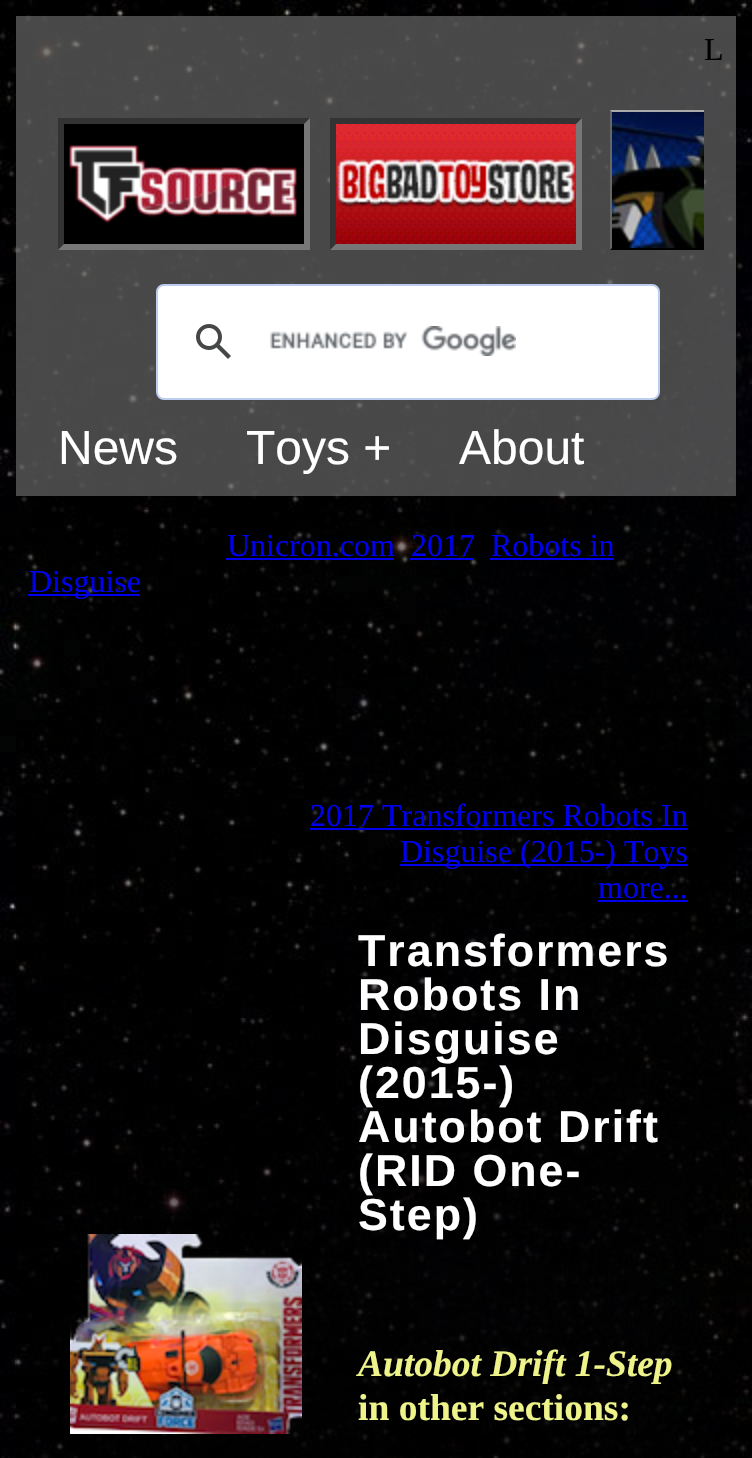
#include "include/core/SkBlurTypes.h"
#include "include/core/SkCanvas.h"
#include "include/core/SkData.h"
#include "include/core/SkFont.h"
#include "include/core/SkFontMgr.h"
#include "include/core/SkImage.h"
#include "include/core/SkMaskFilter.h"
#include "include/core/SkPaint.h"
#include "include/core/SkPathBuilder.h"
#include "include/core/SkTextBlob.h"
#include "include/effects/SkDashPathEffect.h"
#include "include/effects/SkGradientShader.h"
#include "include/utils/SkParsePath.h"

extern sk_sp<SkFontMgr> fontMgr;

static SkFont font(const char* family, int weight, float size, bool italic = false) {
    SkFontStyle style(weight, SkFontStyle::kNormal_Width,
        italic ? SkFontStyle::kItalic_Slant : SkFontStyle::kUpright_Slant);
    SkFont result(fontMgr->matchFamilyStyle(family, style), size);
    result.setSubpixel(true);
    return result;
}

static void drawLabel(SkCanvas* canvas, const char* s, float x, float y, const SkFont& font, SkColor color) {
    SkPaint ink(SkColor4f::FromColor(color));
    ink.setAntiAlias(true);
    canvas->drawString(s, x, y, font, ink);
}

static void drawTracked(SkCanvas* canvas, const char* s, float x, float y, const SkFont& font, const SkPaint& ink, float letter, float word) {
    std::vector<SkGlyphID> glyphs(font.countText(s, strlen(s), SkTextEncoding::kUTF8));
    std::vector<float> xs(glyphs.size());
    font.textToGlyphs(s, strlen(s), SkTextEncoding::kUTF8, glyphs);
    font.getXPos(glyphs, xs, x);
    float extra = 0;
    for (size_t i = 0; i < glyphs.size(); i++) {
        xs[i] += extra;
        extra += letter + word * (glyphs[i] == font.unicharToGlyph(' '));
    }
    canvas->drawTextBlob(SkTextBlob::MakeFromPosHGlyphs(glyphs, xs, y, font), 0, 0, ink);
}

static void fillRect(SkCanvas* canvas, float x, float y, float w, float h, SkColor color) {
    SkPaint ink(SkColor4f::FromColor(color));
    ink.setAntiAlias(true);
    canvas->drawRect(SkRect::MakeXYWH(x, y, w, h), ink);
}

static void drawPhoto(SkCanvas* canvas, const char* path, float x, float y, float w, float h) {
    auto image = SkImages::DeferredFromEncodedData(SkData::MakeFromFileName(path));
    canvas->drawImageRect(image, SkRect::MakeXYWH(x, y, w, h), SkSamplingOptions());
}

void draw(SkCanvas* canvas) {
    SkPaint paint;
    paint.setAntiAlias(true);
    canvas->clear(0xFFFFFFFF);
    drawPhoto(canvas, "assets/img1.png", 0, 0, 752, 1458);
    fillRect(canvas, 16, 16, 720, 480, 0x99787878);
    SkFont font1 = font("Liberation Serif", 400, 32);
    drawLabel(canvas, "L", 704, 60, font1, 0xFF000000);
    drawPhoto(canvas, "assets/img2.png", 58, 110, 646, 140);
    paint.setColor(0xFFFFFFFF);
    canvas->drawRoundRect(SkRect::MakeXYWH(157, 285, 502, 114), 7, 7, paint);
    paint.setStroke(true);
    paint.setStrokeWidth(2);
    paint.setColor(0xFFBCCDF0);
    canvas->drawRoundRect(SkRect::MakeXYWH(157, 285, 502, 114), 7, 7, paint);
    drawPhoto(canvas, "assets/img3.png", 196, 324, 35, 35);
    drawPhoto(canvas, "assets/img4.png", 270, 326, 246, 30);
    SkFont font2 = font("Liberation Sans", 400, 48);
    drawLabel(canvas, "News", 58, 464, font2, 0xFFFFFFFF);
    drawLabel(canvas, "Toys +", 246, 464, font2, 0xFFFFFFFF);
    drawLabel(canvas, "About", 459, 464, font2, 0xFFFFFFFF);
    drawLabel(canvas, "Unicron.com", 227, 556, font1, 0xFF0000EE);
    fillRect(canvas, 226, 558, 168, 2, 0xFF0000EE);
    drawLabel(canvas, "2017", 411, 556, font1, 0xFF0000EE);
    fillRect(canvas, 410, 558, 64, 2, 0xFF0000EE);
    drawLabel(canvas, "Robots in", 491, 556, font1, 0xFF0000EE);
    fillRect(canvas, 490, 558, 124, 2, 0xFF0000EE);
    fillRect(canvas, 28, 594, 112, 2, 0xFF0000EE);
    drawLabel(canvas, "Disguise", 29, 592, font1, 0xFF0000EE);
    drawLabel(canvas, "2017 Transformers Robots In", 310, 826, font1, 0xFF0000EE);
    fillRect(canvas, 310, 828, 378, 2, 0xFF0000EE);
    fillRect(canvas, 400, 864, 288, 2, 0xFF0000EE);
    drawLabel(canvas, "Disguise (2015-) Toys", 400, 862, font1, 0xFF0000EE);
    drawLabel(canvas, "more...", 598, 898, font1, 0xFF0000EE);
    fillRect(canvas, 598, 900, 90, 2, 0xFF0000EE);
    drawPhoto(canvas, "assets/img5.png", 70, 1234, 232, 200);
    SkFont font3 = font("Liberation Sans", 700, 44.75f);
    paint.setStroke(false);
    paint.setColor(0xFFFFFFFF);
    drawTracked(canvas, "Transformers", 358, 966, font3, paint, 2, 0);
    drawTracked(canvas, "Robots In", 358, 1010, font3, paint, 2, 0);
    drawTracked(canvas, "Disguise", 358, 1054, font3, paint, 2, 0);
    drawTracked(canvas, "(2015-)", 358, 1098, font3, paint, 2, 0);
    drawTracked(canvas, "Autobot Drift", 358, 1142, font3, paint, 2, 0);
    drawTracked(canvas, "(RID One-", 358, 1186, font3, paint, 2, 0);
    drawTracked(canvas, "Step)", 358, 1230, font3, paint, 2, 0);
    SkFont font4 = font("Liberation Serif", 700, 37.5f, true);
    drawLabel(canvas, "Autobot Drift 1-Step", 358, 1376, font4, 0xFFEEF489);
    SkFont font5 = font("Liberation Serif", 700, 37.5f);
    drawLabel(canvas, "in other sections:", 358, 1420, font5, 0xFFEEF489);
}
